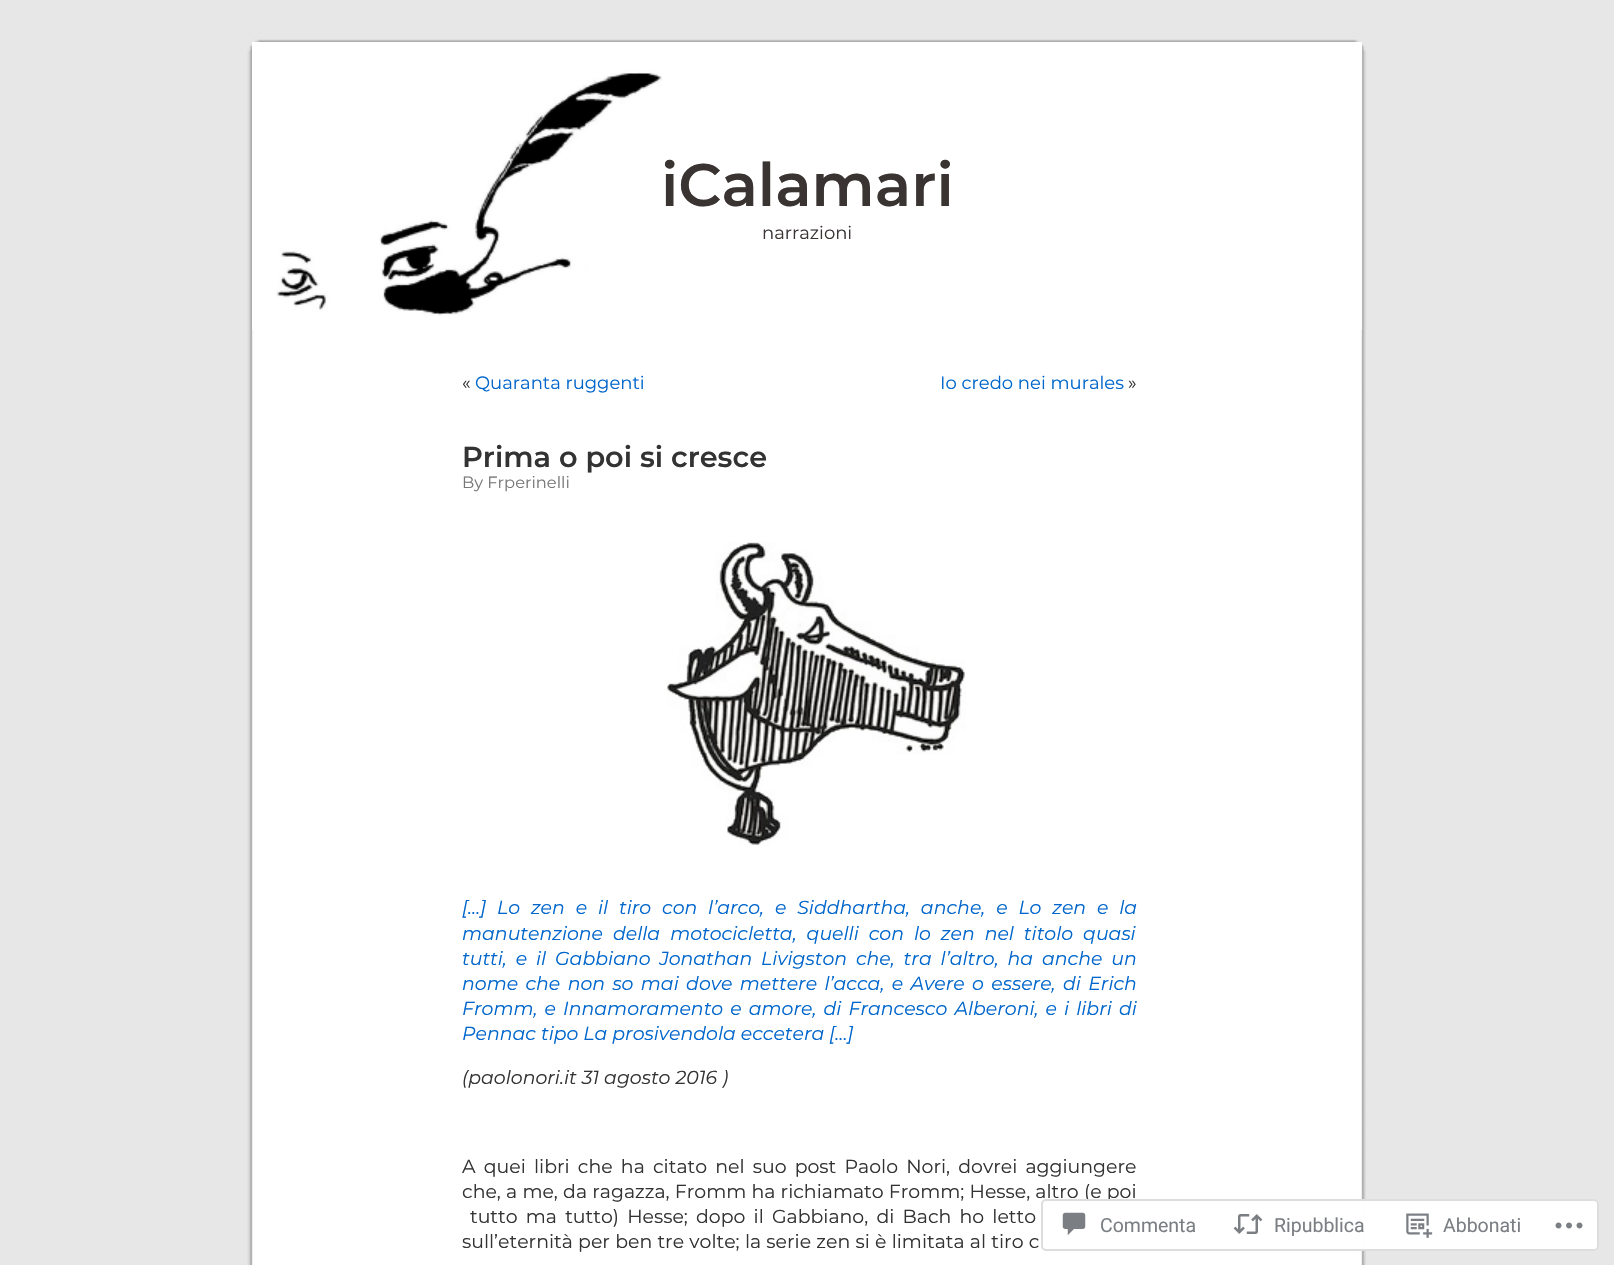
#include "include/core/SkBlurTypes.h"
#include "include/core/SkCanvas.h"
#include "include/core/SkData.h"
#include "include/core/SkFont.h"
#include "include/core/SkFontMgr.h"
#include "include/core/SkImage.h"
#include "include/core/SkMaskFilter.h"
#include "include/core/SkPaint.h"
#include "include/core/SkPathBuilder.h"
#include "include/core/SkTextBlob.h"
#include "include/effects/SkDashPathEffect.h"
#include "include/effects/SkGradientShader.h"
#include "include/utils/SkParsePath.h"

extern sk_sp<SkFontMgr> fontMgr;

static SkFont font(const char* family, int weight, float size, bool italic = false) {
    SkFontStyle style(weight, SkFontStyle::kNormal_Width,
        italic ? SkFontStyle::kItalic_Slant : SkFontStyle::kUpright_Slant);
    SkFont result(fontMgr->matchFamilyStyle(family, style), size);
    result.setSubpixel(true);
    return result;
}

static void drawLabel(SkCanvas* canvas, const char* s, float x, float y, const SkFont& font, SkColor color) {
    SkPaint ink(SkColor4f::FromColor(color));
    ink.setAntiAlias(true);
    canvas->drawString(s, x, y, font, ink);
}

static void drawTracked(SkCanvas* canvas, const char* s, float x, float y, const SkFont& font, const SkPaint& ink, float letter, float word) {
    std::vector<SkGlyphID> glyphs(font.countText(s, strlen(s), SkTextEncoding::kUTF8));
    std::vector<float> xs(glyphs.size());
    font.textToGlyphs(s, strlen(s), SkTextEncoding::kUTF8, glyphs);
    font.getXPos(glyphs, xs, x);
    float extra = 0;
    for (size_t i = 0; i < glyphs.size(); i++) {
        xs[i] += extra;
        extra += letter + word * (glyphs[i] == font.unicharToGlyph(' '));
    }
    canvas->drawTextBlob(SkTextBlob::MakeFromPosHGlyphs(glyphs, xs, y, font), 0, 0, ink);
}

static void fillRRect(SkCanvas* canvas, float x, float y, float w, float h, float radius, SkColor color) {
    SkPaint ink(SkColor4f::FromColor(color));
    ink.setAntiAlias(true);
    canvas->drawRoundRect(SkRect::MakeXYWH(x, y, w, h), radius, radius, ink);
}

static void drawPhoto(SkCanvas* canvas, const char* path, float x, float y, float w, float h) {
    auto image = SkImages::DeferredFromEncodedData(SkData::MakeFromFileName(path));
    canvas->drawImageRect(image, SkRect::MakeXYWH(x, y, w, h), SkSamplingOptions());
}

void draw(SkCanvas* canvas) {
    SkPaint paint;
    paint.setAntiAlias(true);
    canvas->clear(0xFFE7E7E7);
    drawPhoto(canvas, "assets/img1.png", 247, 330, 1119, 935);
    drawPhoto(canvas, "assets/img2.png", 247, 30, 1120, 300);
    drawPhoto(canvas, "assets/img3.png", 252, 42, 1110, 288);
    SkFont font1 = font("Montserrat", 600, 60);
    drawLabel(canvas, "iCalamari", 661, 206, font1, 0xFF393332);
    SkFont font2 = font("Montserrat", 400, 18);
    drawLabel(canvas, "narrazioni", 762, 239, font2, 0xFF393332);
    drawLabel(canvas, "«", 462, 389, font2, 0xFF333333);
    drawLabel(canvas, "Quaranta ruggenti", 475, 389, font2, 0xFF0066CC);
    drawLabel(canvas, "Io credo nei murales", 940, 389, font2, 0xFF0066CC);
    drawLabel(canvas, "»", 1128, 389, font2, 0xFF333333);
    SkFont font3 = font("Montserrat", 600, 28.75f);
    drawLabel(canvas, "Prima o poi si cresce", 462, 467, font3, 0xFF333333);
    SkFont font4 = font("Montserrat", 400, 16.25f);
    drawLabel(canvas, "By Frperinelli", 462, 488, font4, 0xFF777777);
    drawPhoto(canvas, "assets/img4.png", 667, 542, 299, 304);
    SkFont font5 = font("Montserrat", 400, 18.9f, true);
    paint.setColor(0xFF0066CC);
    drawTracked(canvas, "[…] Lo zen e il tiro con l’arco, e Siddhartha, anche, e Lo zen e la", 462, 914, font5, paint, 0, 5.9f);
    drawTracked(canvas, "manutenzione della motocicletta, quelli con lo zen nel titolo quasi", 462, 940, font5, paint, 0, 5);
    drawTracked(canvas, "tutti, e il Gabbiano Jonathan Livigston che, tra l’altro, ha anche un", 462, 965, font5, paint, 0, 3.9f);
    drawTracked(canvas, "nome che non so mai dove mettere l’acca, e Avere o essere, di Erich", 462, 990, font5, paint, 0, 2.4f);
    drawTracked(canvas, "Fromm, e Innamoramento e amore, di Francesco Alberoni, e i libri di", 462, 1015, font5, paint, 0, 2.1f);
    drawLabel(canvas, "Pennac tipo La prosivendola eccetera […]", 462, 1040, font5, 0xFF0066CC);
    drawLabel(canvas, "(paolonori.it 31 agosto 2016 )", 462, 1084, font5, 0xFF333333);
    SkFont font6 = font("Montserrat", 400, 18.9f);
    paint.setColor(0xFF333333);
    drawTracked(canvas, "A quei libri che ha citato nel suo post Paolo Nori, dovrei aggiungere", 462, 1173, font6, paint, 0, 3.25f);
    drawTracked(canvas, "che, a me, da ragazza, Fromm ha richiamato Fromm; Hesse, altro (e poi", 462, 1198, font6, paint, 0, 0.25f);
    drawTracked(canvas, "tutto ma tutto) Hesse; dopo il Gabbiano, di Bach ho letto", 470, 1223, font6, paint, 0, 3.25f);
    drawTracked(canvas, "sull’eternità per ben tre volte; la serie zen si è limitata al tiro c", 462, 1248, font6, paint, 0, 0.3f);
    fillRRect(canvas, 1041, 1199, 558, 52, 5, 0xFAFFFFFF);
    paint.setStroke(true);
    paint.setStrokeWidth(2);
    paint.setColor(0xFADCDCDE);
    canvas->drawRoundRect(SkRect::MakeXYWH(1042, 1200, 556, 50), 4, 4, paint);
    drawPhoto(canvas, "assets/img5.png", 1062, 1212, 24, 24);
    SkFont font7 = font("Roboto", 400, 19.5f);
    drawLabel(canvas, "Commenta", 1100, 1232, font7, 0xFF7B7F84);
    drawPhoto(canvas, "assets/img6.png", 1233, 1214, 30, 20);
    drawLabel(canvas, "Ripubblica", 1274, 1232, font7, 0xFF7B7F84);
    drawPhoto(canvas, "assets/img7.png", 1406, 1213, 27, 25);
    drawLabel(canvas, "Abbonati", 1443, 1232, font7, 0xFF7B7F84);
    drawPhoto(canvas, "assets/img8.png", 1555, 1222, 28, 7);
}
